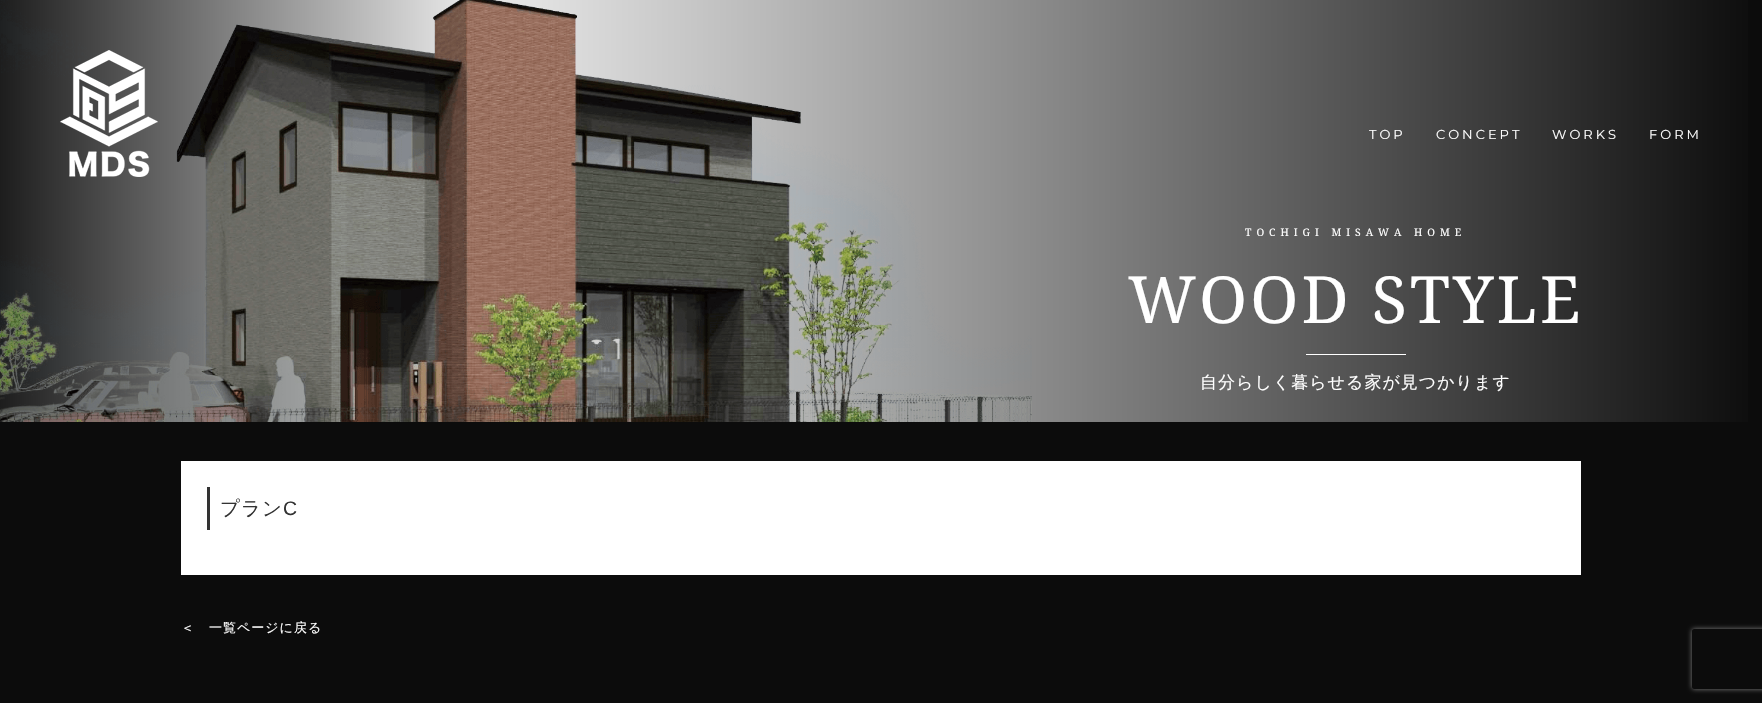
#include "include/core/SkBlurTypes.h"
#include "include/core/SkCanvas.h"
#include "include/core/SkData.h"
#include "include/core/SkFont.h"
#include "include/core/SkFontMgr.h"
#include "include/core/SkImage.h"
#include "include/core/SkMaskFilter.h"
#include "include/core/SkPaint.h"
#include "include/core/SkPathBuilder.h"
#include "include/core/SkTextBlob.h"
#include "include/effects/SkDashPathEffect.h"
#include "include/effects/SkGradientShader.h"
#include "include/utils/SkParsePath.h"

extern sk_sp<SkFontMgr> fontMgr;

static SkFont font(const char* family, int weight, float size, bool italic = false) {
    SkFontStyle style(weight, SkFontStyle::kNormal_Width,
        italic ? SkFontStyle::kItalic_Slant : SkFontStyle::kUpright_Slant);
    SkFont result(fontMgr->matchFamilyStyle(family, style), size);
    result.setSubpixel(true);
    return result;
}

static void drawTracked(SkCanvas* canvas, const char* s, float x, float y, const SkFont& font, const SkPaint& ink, float letter, float word) {
    std::vector<SkGlyphID> glyphs(font.countText(s, strlen(s), SkTextEncoding::kUTF8));
    std::vector<float> xs(glyphs.size());
    font.textToGlyphs(s, strlen(s), SkTextEncoding::kUTF8, glyphs);
    font.getXPos(glyphs, xs, x);
    float extra = 0;
    for (size_t i = 0; i < glyphs.size(); i++) {
        xs[i] += extra;
        extra += letter + word * (glyphs[i] == font.unicharToGlyph(' '));
    }
    canvas->drawTextBlob(SkTextBlob::MakeFromPosHGlyphs(glyphs, xs, y, font), 0, 0, ink);
}

static void fillRect(SkCanvas* canvas, float x, float y, float w, float h, SkColor color) {
    SkPaint ink(SkColor4f::FromColor(color));
    ink.setAntiAlias(true);
    canvas->drawRect(SkRect::MakeXYWH(x, y, w, h), ink);
}

static void drawPhoto(SkCanvas* canvas, const char* path, float x, float y, float w, float h) {
    auto image = SkImages::DeferredFromEncodedData(SkData::MakeFromFileName(path));
    canvas->drawImageRect(image, SkRect::MakeXYWH(x, y, w, h), SkSamplingOptions());
}

static SkPath parsePath(const char* data, bool evenOdd = false) {
    SkPath result = *SkParsePath::FromSVGString(data);
    if (evenOdd) result.setFillType(SkPathFillType::kEvenOdd);
    return result;
}

void draw(SkCanvas* canvas) {
    SkPaint paint;
    paint.setAntiAlias(true);
    canvas->clear(0xFF0C0C0C);
    {
        const SkColor colors[] = {0xFF1D1D1D, 0xFFECECEC, 0xFF0C0C0C};
        const float stops[] = {0, 0.27f, 1};
        const SkPoint ends[] = {{0, 211}, {1762, 211}};
        paint.setShader(SkGradientShader::MakeLinear(ends, colors, stops, 3, SkTileMode::kClamp));
        paint.setAlpha(255);
    }
    canvas->drawRect(SkRect::MakeXYWH(0, 0, 1748, 422), paint);
    drawPhoto(canvas, "assets/img2.png", 0, 0, 1032, 422);
    drawPhoto(canvas, "assets/img1.png", 60, 50, 98, 127);
    SkFont font1 = font("Montserrat", 400, 13);
    paint.setShader(nullptr);
    paint.setColor(0xFFFFFFFF);
    drawTracked(canvas, "TOP", 1369, 139, font1, paint, 3, 0);
    drawTracked(canvas, "CONCEPT", 1436, 139, font1, paint, 3, 0);
    drawTracked(canvas, "WORKS", 1552, 139, font1, paint, 3, 0);
    drawTracked(canvas, "FORM", 1649, 139, font1, paint, 3, 0);
    SkFont font2 = font("Noto Serif", 400, 10.4f);
    drawTracked(canvas, "TOCHIGI MISAWA HOME", 1245, 236, font2, paint, 5, 0);
    SkFont font3 = font("Noto Serif", 400, 65);
    drawTracked(canvas, "WOOD STYLE", 1128, 323, font3, paint, 3, 0);
    fillRect(canvas, 1306, 354, 100, 1, 0xFFFFFFFF);
    SkFont font4 = font("WenQuanYi Zen Hei", 500, 17);
    drawTracked(canvas, "自分らしく暮らせる家が見つかります", 1200, 388, font4, paint, 1, 0);
    fillRect(canvas, 181, 461, 1400, 114, 0xFFFFFFFF);
    fillRect(canvas, 207, 487, 3, 43, 0xFF333333);
    SkFont font5 = font("WenQuanYi Zen Hei", 500, 19.5f);
    paint.setColor(0xFF333333);
    drawTracked(canvas, "プラン", 220, 515, font5, paint, 1, 0);
    SkFont font6 = font("Liberation Sans", 400, 19.5f);
    drawTracked(canvas, "C", 283, 515, font6, paint, 1, 0);
    SkFont font7 = font("WenQuanYi Zen Hei", 500, 13);
    paint.setColor(0xFFFFFFFF);
    drawTracked(canvas, "＜　一覧ページに戻る", 181, 632, font7, paint, 1, 0);
    canvas->save();
    canvas->clipPath(parsePath("M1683 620H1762V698H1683ZM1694 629H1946C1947 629 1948 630 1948 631V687C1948 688 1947 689 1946 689H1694C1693 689 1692 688 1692 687V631C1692 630 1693 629 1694 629Z", true), true);
    paint.setColor(0xFF808080);
    paint.setMaskFilter(SkMaskFilter::MakeBlur(kNormal_SkBlurStyle, 2.5f));
    canvas->drawRoundRect(SkRect::MakeXYWH(1692, 629, 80, 60), 2, 2, paint);
    paint.setMaskFilter(nullptr);
    canvas->restore();
}
